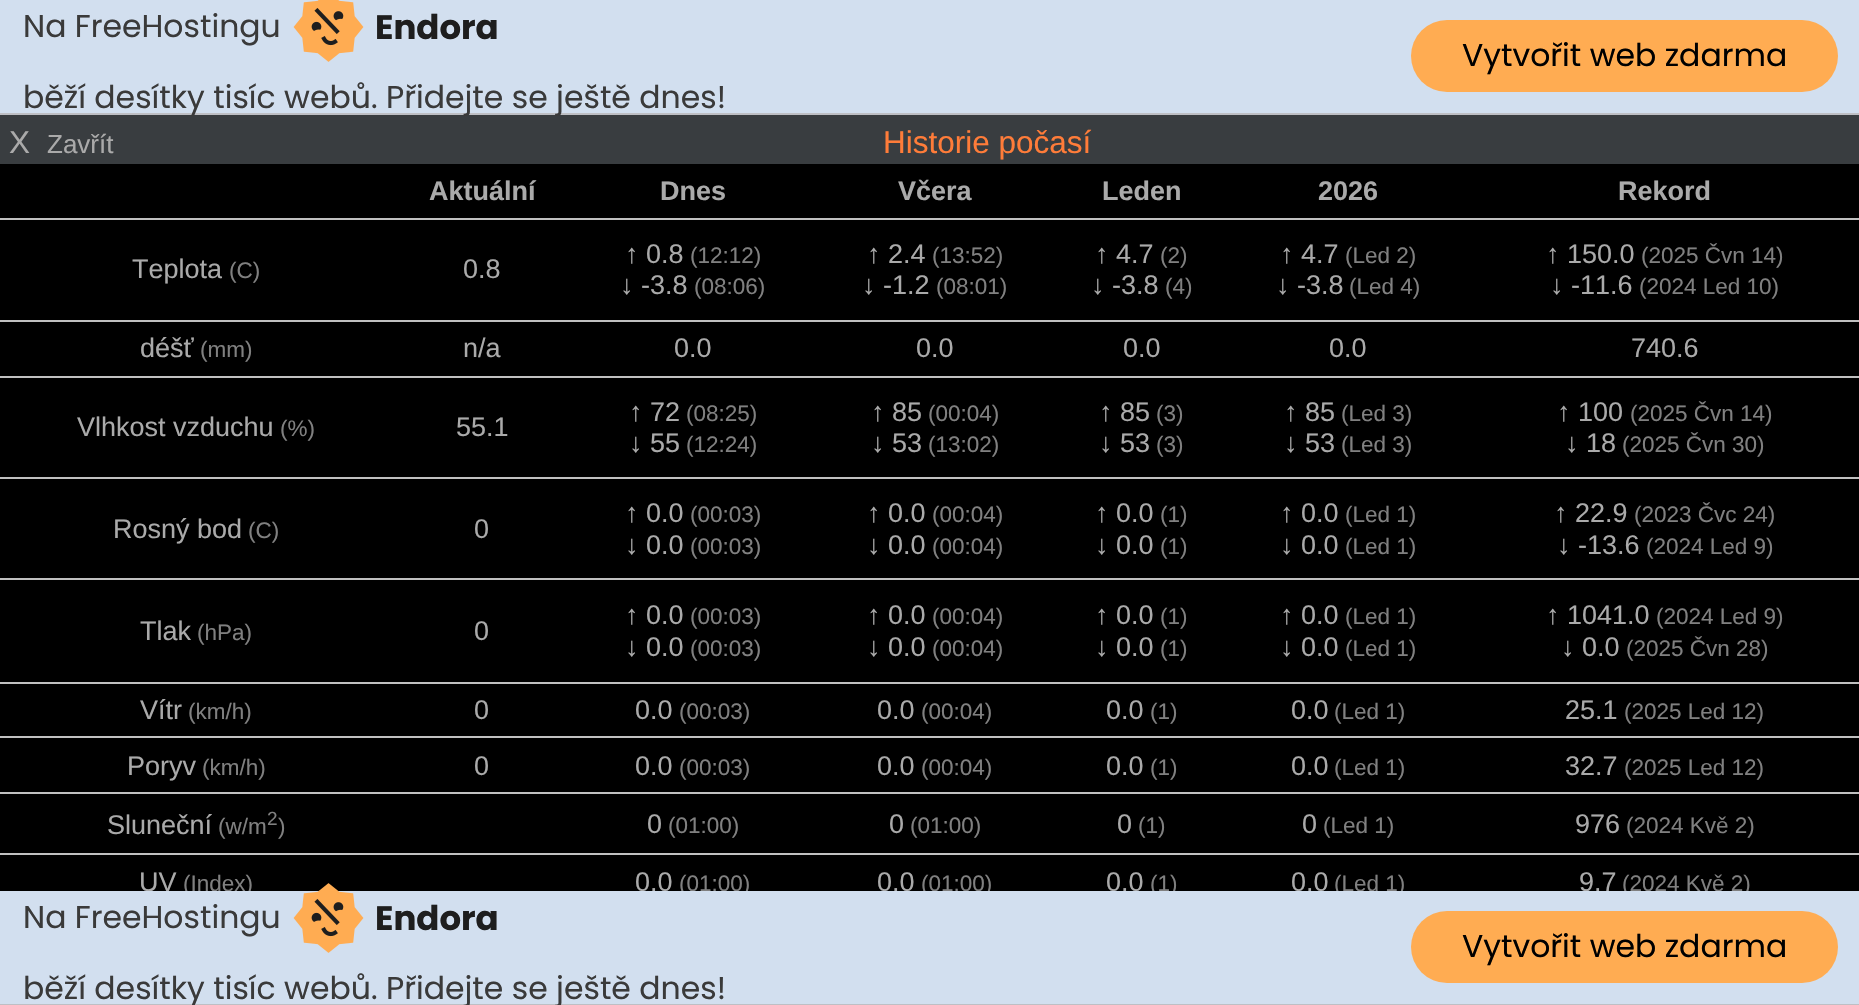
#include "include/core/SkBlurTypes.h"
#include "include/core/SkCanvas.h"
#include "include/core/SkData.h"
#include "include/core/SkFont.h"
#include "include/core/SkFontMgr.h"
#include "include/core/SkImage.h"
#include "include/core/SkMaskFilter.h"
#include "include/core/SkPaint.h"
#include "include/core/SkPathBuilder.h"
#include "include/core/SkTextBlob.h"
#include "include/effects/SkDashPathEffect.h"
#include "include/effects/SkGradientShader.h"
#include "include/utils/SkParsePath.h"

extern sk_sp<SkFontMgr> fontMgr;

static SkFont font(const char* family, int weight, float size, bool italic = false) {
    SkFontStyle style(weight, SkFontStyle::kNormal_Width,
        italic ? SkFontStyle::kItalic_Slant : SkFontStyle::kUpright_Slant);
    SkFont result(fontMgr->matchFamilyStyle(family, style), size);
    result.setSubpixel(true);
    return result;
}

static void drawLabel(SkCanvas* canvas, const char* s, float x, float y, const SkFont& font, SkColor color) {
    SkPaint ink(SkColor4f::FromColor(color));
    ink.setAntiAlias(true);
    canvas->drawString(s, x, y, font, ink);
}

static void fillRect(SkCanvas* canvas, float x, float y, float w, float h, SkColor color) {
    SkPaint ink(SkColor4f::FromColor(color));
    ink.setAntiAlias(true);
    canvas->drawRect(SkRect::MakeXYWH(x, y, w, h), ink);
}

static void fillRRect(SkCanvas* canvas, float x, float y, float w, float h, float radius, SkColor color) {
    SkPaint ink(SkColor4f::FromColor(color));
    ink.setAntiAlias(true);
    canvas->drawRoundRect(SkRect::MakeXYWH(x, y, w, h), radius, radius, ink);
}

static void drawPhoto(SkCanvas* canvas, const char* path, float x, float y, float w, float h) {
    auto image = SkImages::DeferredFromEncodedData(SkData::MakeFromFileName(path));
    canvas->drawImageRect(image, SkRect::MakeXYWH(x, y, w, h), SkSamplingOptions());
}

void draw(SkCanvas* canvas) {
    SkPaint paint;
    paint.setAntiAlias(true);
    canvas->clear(0xFF000000);
    fillRect(canvas, 0, 0, 1859, 113, 0xFFD2DFEF);
    fillRect(canvas, 0, 113, 1859, 2, 0xFFBEBFC4);
    SkFont font1 = font("Poppins", 400, 31.5f);
    drawLabel(canvas, "Na FreeHostingu", 23, 37, font1, 0xFF3A3A3A);
    drawPhoto(canvas, "assets/img1.png", 293, 0, 71, 62);
    SkFont font2 = font("Poppins", 700, 34);
    drawLabel(canvas, "Endora", 375, 39, font2, 0xFF1E1E1E);
    fillRect(canvas, 0, 115, 1859, 49, 0xFF393D40);
    drawLabel(canvas, "běží desítky tisíc webů. Přidejte se ještě dnes!", 23, 108, font1, 0xFF3A3A3A);
    fillRRect(canvas, 1411, 20, 427, 72, 36, 0xFFFFAC52);
    drawLabel(canvas, "Vytvořit web zdarma", 1462, 66, font1, 0xFF000000);
    SkFont font3 = font("Liberation Sans", 400, 31.5f);
    drawLabel(canvas, "X", 9, 153, font3, 0xFFAAAAAA);
    SkFont font4 = font("Liberation Sans", 400, 26);
    drawLabel(canvas, "Zavřít", 47, 153, font4, 0xFFAAAAAA);
    drawLabel(canvas, "Historie počasí", 883, 153, font3, 0xFFFF7C39);
    SkFont font5 = font("Liberation Sans", 700, 27);
    drawLabel(canvas, "Aktuální", 429, 200, font5, 0xFFAAAAAA);
    drawLabel(canvas, "Dnes", 660, 200, font5, 0xFFAAAAAA);
    drawLabel(canvas, "Včera", 898, 200, font5, 0xFFAAAAAA);
    drawLabel(canvas, "Leden", 1102, 200, font5, 0xFFAAAAAA);
    drawLabel(canvas, "2026", 1318, 200, font5, 0xFFAAAAAA);
    fillRect(canvas, 0, 218, 1859, 2, 0xFFC0C0C0);
    drawLabel(canvas, "Rekord", 1618, 200, font5, 0xFFAAAAAA);
    SkFont font6 = font("Liberation Sans", 400, 27);
    drawLabel(canvas, "Teplota", 132, 278, font6, 0xFFAAAAAA);
    SkFont font7 = font("Liberation Sans", 400, 22.5f);
    drawLabel(canvas, "(C)", 229, 278, font7, 0xFF808080);
    drawLabel(canvas, "0.8", 463, 278, font6, 0xFFAAAAAA);
    drawLabel(canvas, "↑ 0.8", 625, 263, font6, 0xFFAAAAAA);
    drawLabel(canvas, "(12:12)", 690, 263, font7, 0xFF808080);
    drawLabel(canvas, "↓ -3.8", 620, 294, font6, 0xFFAAAAAA);
    drawLabel(canvas, "(08:06)", 694, 294, font7, 0xFF808080);
    drawLabel(canvas, "↑ 2.4", 867, 263, font6, 0xFFAAAAAA);
    drawLabel(canvas, "(13:52)", 932, 263, font7, 0xFF808080);
    drawLabel(canvas, "↓ -1.2", 862, 294, font6, 0xFFAAAAAA);
    drawLabel(canvas, "(08:01)", 936, 294, font7, 0xFF808080);
    drawLabel(canvas, "↑ 4.7", 1095, 263, font6, 0xFFAAAAAA);
    drawLabel(canvas, "(2)", 1160, 263, font7, 0xFF808080);
    drawLabel(canvas, "↓ -3.8", 1091, 294, font6, 0xFFAAAAAA);
    drawLabel(canvas, "(4)", 1165, 294, font7, 0xFF808080);
    drawLabel(canvas, "↑ 4.7", 1280, 263, font6, 0xFFAAAAAA);
    drawLabel(canvas, "(Led 2)", 1345, 263, font7, 0xFF808080);
    drawLabel(canvas, "↓ -3.8", 1276, 294, font6, 0xFFAAAAAA);
    drawLabel(canvas, "(Led 4)", 1349, 294, font7, 0xFF808080);
    fillRect(canvas, 0, 320, 1859, 2, 0xFFC0C0C0);
    drawLabel(canvas, "↑ 150.0", 1546, 263, font6, 0xFFAAAAAA);
    drawLabel(canvas, "(2025 Čvn 14)", 1641, 263, font7, 0xFF808080);
    drawLabel(canvas, "↓ -11.6", 1550, 294, font6, 0xFFAAAAAA);
    drawLabel(canvas, "(2024 Led 10)", 1639, 294, font7, 0xFF808080);
    drawLabel(canvas, "déšť", 140, 357, font6, 0xFFAAAAAA);
    drawLabel(canvas, "(mm)", 200, 357, font7, 0xFF808080);
    drawLabel(canvas, "n/a", 463, 357, font6, 0xFFAAAAAA);
    drawLabel(canvas, "0.0", 674, 357, font6, 0xFFAAAAAA);
    drawLabel(canvas, "0.0", 916, 357, font6, 0xFFAAAAAA);
    drawLabel(canvas, "0.0", 1123, 357, font6, 0xFFAAAAAA);
    drawLabel(canvas, "0.0", 1329, 357, font6, 0xFFAAAAAA);
    fillRect(canvas, 0, 376, 1859, 2, 0xFFC0C0C0);
    drawLabel(canvas, "740.6", 1631, 357, font6, 0xFFAAAAAA);
    drawLabel(canvas, "Vlhkost vzduchu", 77, 436, font6, 0xFFAAAAAA);
    drawLabel(canvas, "(%)", 280, 436, font7, 0xFF808080);
    drawLabel(canvas, "55.1", 456, 436, font6, 0xFFAAAAAA);
    drawLabel(canvas, "↑ 72", 629, 421, font6, 0xFFAAAAAA);
    drawLabel(canvas, "(08:25)", 686, 421, font7, 0xFF808080);
    drawLabel(canvas, "↓ 55", 629, 452, font6, 0xFFAAAAAA);
    drawLabel(canvas, "(12:24)", 686, 452, font7, 0xFF808080);
    drawLabel(canvas, "↑ 85", 871, 421, font6, 0xFFAAAAAA);
    drawLabel(canvas, "(00:04)", 928, 421, font7, 0xFF808080);
    drawLabel(canvas, "↓ 53", 871, 452, font6, 0xFFAAAAAA);
    drawLabel(canvas, "(13:02)", 928, 452, font7, 0xFF808080);
    drawLabel(canvas, "↑ 85", 1099, 421, font6, 0xFFAAAAAA);
    drawLabel(canvas, "(3)", 1156, 421, font7, 0xFF808080);
    drawLabel(canvas, "↓ 53", 1099, 452, font6, 0xFFAAAAAA);
    drawLabel(canvas, "(3)", 1156, 452, font7, 0xFF808080);
    drawLabel(canvas, "↑ 85", 1284, 421, font6, 0xFFAAAAAA);
    drawLabel(canvas, "(Led 3)", 1341, 421, font7, 0xFF808080);
    drawLabel(canvas, "↓ 53", 1284, 452, font6, 0xFFAAAAAA);
    drawLabel(canvas, "(Led 3)", 1341, 452, font7, 0xFF808080);
    fillRect(canvas, 0, 477, 1859, 2, 0xFFC0C0C0);
    drawLabel(canvas, "↑ 100", 1557, 421, font6, 0xFFAAAAAA);
    drawLabel(canvas, "(2025 Čvn 14)", 1630, 421, font7, 0xFF808080);
    drawLabel(canvas, "↓ 18", 1565, 452, font6, 0xFFAAAAAA);
    drawLabel(canvas, "(2025 Čvn 30)", 1622, 452, font7, 0xFF808080);
    drawLabel(canvas, "Rosný bod", 113, 538, font6, 0xFFAAAAAA);
    drawLabel(canvas, "(C)", 248, 538, font7, 0xFF808080);
    drawLabel(canvas, "0", 474, 538, font6, 0xFFAAAAAA);
    drawLabel(canvas, "↑ 0.0", 625, 522, font6, 0xFFAAAAAA);
    drawLabel(canvas, "(00:03)", 690, 522, font7, 0xFF808080);
    drawLabel(canvas, "↓ 0.0", 625, 554, font6, 0xFFAAAAAA);
    drawLabel(canvas, "(00:03)", 690, 554, font7, 0xFF808080);
    drawLabel(canvas, "↑ 0.0", 867, 522, font6, 0xFFAAAAAA);
    drawLabel(canvas, "(00:04)", 932, 522, font7, 0xFF808080);
    drawLabel(canvas, "↓ 0.0", 867, 554, font6, 0xFFAAAAAA);
    drawLabel(canvas, "(00:04)", 932, 554, font7, 0xFF808080);
    drawLabel(canvas, "↑ 0.0", 1095, 522, font6, 0xFFAAAAAA);
    drawLabel(canvas, "(1)", 1160, 522, font7, 0xFF808080);
    drawLabel(canvas, "↓ 0.0", 1095, 554, font6, 0xFFAAAAAA);
    drawLabel(canvas, "(1)", 1160, 554, font7, 0xFF808080);
    drawLabel(canvas, "↑ 0.0", 1280, 522, font6, 0xFFAAAAAA);
    drawLabel(canvas, "(Led 1)", 1345, 522, font7, 0xFF808080);
    drawLabel(canvas, "↓ 0.0", 1280, 554, font6, 0xFFAAAAAA);
    drawLabel(canvas, "(Led 1)", 1345, 554, font7, 0xFF808080);
    fillRect(canvas, 0, 578, 1859, 2, 0xFFC0C0C0);
    drawLabel(canvas, "↑ 22.9", 1554, 522, font6, 0xFFAAAAAA);
    drawLabel(canvas, "(2023 Čvc 24)", 1634, 522, font7, 0xFF808080);
    drawLabel(canvas, "↓ -13.6", 1557, 554, font6, 0xFFAAAAAA);
    drawLabel(canvas, "(2024 Led 9)", 1646, 554, font7, 0xFF808080);
    drawLabel(canvas, "Tlak", 140, 640, font6, 0xFFAAAAAA);
    drawLabel(canvas, "(hPa)", 197, 640, font7, 0xFF808080);
    drawLabel(canvas, "0", 474, 640, font6, 0xFFAAAAAA);
    drawLabel(canvas, "↑ 0.0", 625, 624, font6, 0xFFAAAAAA);
    drawLabel(canvas, "(00:03)", 690, 624, font7, 0xFF808080);
    drawLabel(canvas, "↓ 0.0", 625, 656, font6, 0xFFAAAAAA);
    drawLabel(canvas, "(00:03)", 690, 656, font7, 0xFF808080);
    drawLabel(canvas, "↑ 0.0", 867, 624, font6, 0xFFAAAAAA);
    drawLabel(canvas, "(00:04)", 932, 624, font7, 0xFF808080);
    drawLabel(canvas, "↓ 0.0", 867, 656, font6, 0xFFAAAAAA);
    drawLabel(canvas, "(00:04)", 932, 656, font7, 0xFF808080);
    drawLabel(canvas, "↑ 0.0", 1095, 624, font6, 0xFFAAAAAA);
    drawLabel(canvas, "(1)", 1160, 624, font7, 0xFF808080);
    drawLabel(canvas, "↓ 0.0", 1095, 656, font6, 0xFFAAAAAA);
    drawLabel(canvas, "(1)", 1160, 656, font7, 0xFF808080);
    drawLabel(canvas, "↑ 0.0", 1280, 624, font6, 0xFFAAAAAA);
    drawLabel(canvas, "(Led 1)", 1345, 624, font7, 0xFF808080);
    drawLabel(canvas, "↓ 0.0", 1280, 656, font6, 0xFFAAAAAA);
    drawLabel(canvas, "(Led 1)", 1345, 656, font7, 0xFF808080);
    fillRect(canvas, 0, 682, 1859, 2, 0xFFC0C0C0);
    drawLabel(canvas, "↑ 1041.0", 1546, 624, font6, 0xFFAAAAAA);
    drawLabel(canvas, "(2024 Led 9)", 1656, 624, font7, 0xFF808080);
    drawLabel(canvas, "↓ 0.0", 1561, 656, font6, 0xFFAAAAAA);
    drawLabel(canvas, "(2025 Čvn 28)", 1626, 656, font7, 0xFF808080);
    drawLabel(canvas, "Vítr", 140, 719, font6, 0xFFAAAAAA);
    drawLabel(canvas, "(km/h)", 188, 719, font7, 0xFF808080);
    drawLabel(canvas, "0", 474, 719, font6, 0xFFAAAAAA);
    drawLabel(canvas, "0.0", 635, 719, font6, 0xFFAAAAAA);
    drawLabel(canvas, "(00:03)", 679, 719, font7, 0xFF808080);
    drawLabel(canvas, "0.0", 877, 719, font6, 0xFFAAAAAA);
    drawLabel(canvas, "(00:04)", 921, 719, font7, 0xFF808080);
    drawLabel(canvas, "0.0", 1106, 719, font6, 0xFFAAAAAA);
    drawLabel(canvas, "(1)", 1150, 719, font7, 0xFF808080);
    drawLabel(canvas, "0.0", 1291, 719, font6, 0xFFAAAAAA);
    drawLabel(canvas, "(Led 1)", 1334, 719, font7, 0xFF808080);
    fillRect(canvas, 0, 736, 1859, 2, 0xFFC0C0C0);
    drawLabel(canvas, "25.1", 1565, 719, font6, 0xFFAAAAAA);
    drawLabel(canvas, "(2025 Led 12)", 1624, 719, font7, 0xFF808080);
    drawLabel(canvas, "Poryv", 127, 775, font6, 0xFFAAAAAA);
    drawLabel(canvas, "(km/h)", 202, 775, font7, 0xFF808080);
    drawLabel(canvas, "0", 474, 775, font6, 0xFFAAAAAA);
    drawLabel(canvas, "0.0", 635, 775, font6, 0xFFAAAAAA);
    drawLabel(canvas, "(00:03)", 679, 775, font7, 0xFF808080);
    drawLabel(canvas, "0.0", 877, 775, font6, 0xFFAAAAAA);
    drawLabel(canvas, "(00:04)", 921, 775, font7, 0xFF808080);
    drawLabel(canvas, "0.0", 1106, 775, font6, 0xFFAAAAAA);
    drawLabel(canvas, "(1)", 1150, 775, font7, 0xFF808080);
    drawLabel(canvas, "0.0", 1291, 775, font6, 0xFFAAAAAA);
    drawLabel(canvas, "(Led 1)", 1334, 775, font7, 0xFF808080);
    fillRect(canvas, 0, 792, 1859, 2, 0xFFC0C0C0);
    drawLabel(canvas, "32.7", 1565, 775, font6, 0xFFAAAAAA);
    drawLabel(canvas, "(2025 Led 12)", 1624, 775, font7, 0xFF808080);
    drawLabel(canvas, "Sluneční", 107, 834, font6, 0xFFAAAAAA);
    drawLabel(canvas, "(w/m", 218, 834, font7, 0xFF808080);
    SkFont font8 = font("Liberation Sans", 400, 19);
    drawLabel(canvas, "2", 267, 825, font8, 0xFF808080);
    drawLabel(canvas, ")", 278, 834, font7, 0xFF808080);
    drawLabel(canvas, "0", 647, 833, font6, 0xFFAAAAAA);
    drawLabel(canvas, "(01:00)", 668, 833, font7, 0xFF808080);
    drawLabel(canvas, "0", 889, 833, font6, 0xFFAAAAAA);
    drawLabel(canvas, "(01:00)", 910, 833, font7, 0xFF808080);
    drawLabel(canvas, "0", 1117, 833, font6, 0xFFAAAAAA);
    drawLabel(canvas, "(1)", 1138, 833, font7, 0xFF808080);
    drawLabel(canvas, "0", 1302, 833, font6, 0xFFAAAAAA);
    drawLabel(canvas, "(Led 1)", 1323, 833, font7, 0xFF808080);
    fillRect(canvas, 0, 853, 1859, 2, 0xFFC0C0C0);
    drawLabel(canvas, "976", 1575, 833, font6, 0xFFAAAAAA);
    drawLabel(canvas, "(2024 Kvě 2)", 1626, 833, font7, 0xFF808080);
    drawLabel(canvas, "UV", 139, 891, font6, 0xFFAAAAAA);
    drawLabel(canvas, "(Index)", 183, 891, font7, 0xFF808080);
    drawLabel(canvas, "0.0", 635, 891, font6, 0xFFAAAAAA);
    drawLabel(canvas, "(01:00)", 679, 891, font7, 0xFF808080);
    drawLabel(canvas, "0.0", 877, 891, font6, 0xFFAAAAAA);
    drawLabel(canvas, "(01:00)", 921, 891, font7, 0xFF808080);
    drawLabel(canvas, "0.0", 1106, 891, font6, 0xFFAAAAAA);
    drawLabel(canvas, "(1)", 1150, 891, font7, 0xFF808080);
    drawLabel(canvas, "0.0", 1291, 891, font6, 0xFFAAAAAA);
    drawLabel(canvas, "(Led 1)", 1334, 891, font7, 0xFF808080);
    drawLabel(canvas, "9.7", 1579, 891, font6, 0xFFAAAAAA);
    drawLabel(canvas, "(2024 Kvě 2)", 1622, 891, font7, 0xFF808080);
    fillRect(canvas, 0, 891, 1859, 113, 0xFFD2DFEF);
    fillRect(canvas, 0, 1004, 1859, 1, 0xFFBEBFC4);
    drawLabel(canvas, "Na FreeHostingu", 23, 928, font1, 0xFF3A3A3A);
    drawPhoto(canvas, "assets/img2.png", 293, 883, 71, 70);
    drawLabel(canvas, "Endora", 375, 930, font2, 0xFF1E1E1E);
    drawLabel(canvas, "běží desítky tisíc webů. Přidejte se ještě dnes!", 23, 999, font1, 0xFF3A3A3A);
    fillRRect(canvas, 1411, 911, 427, 72, 36, 0xFFFFAC52);
    drawLabel(canvas, "Vytvořit web zdarma", 1462, 957, font1, 0xFF000000);
}
